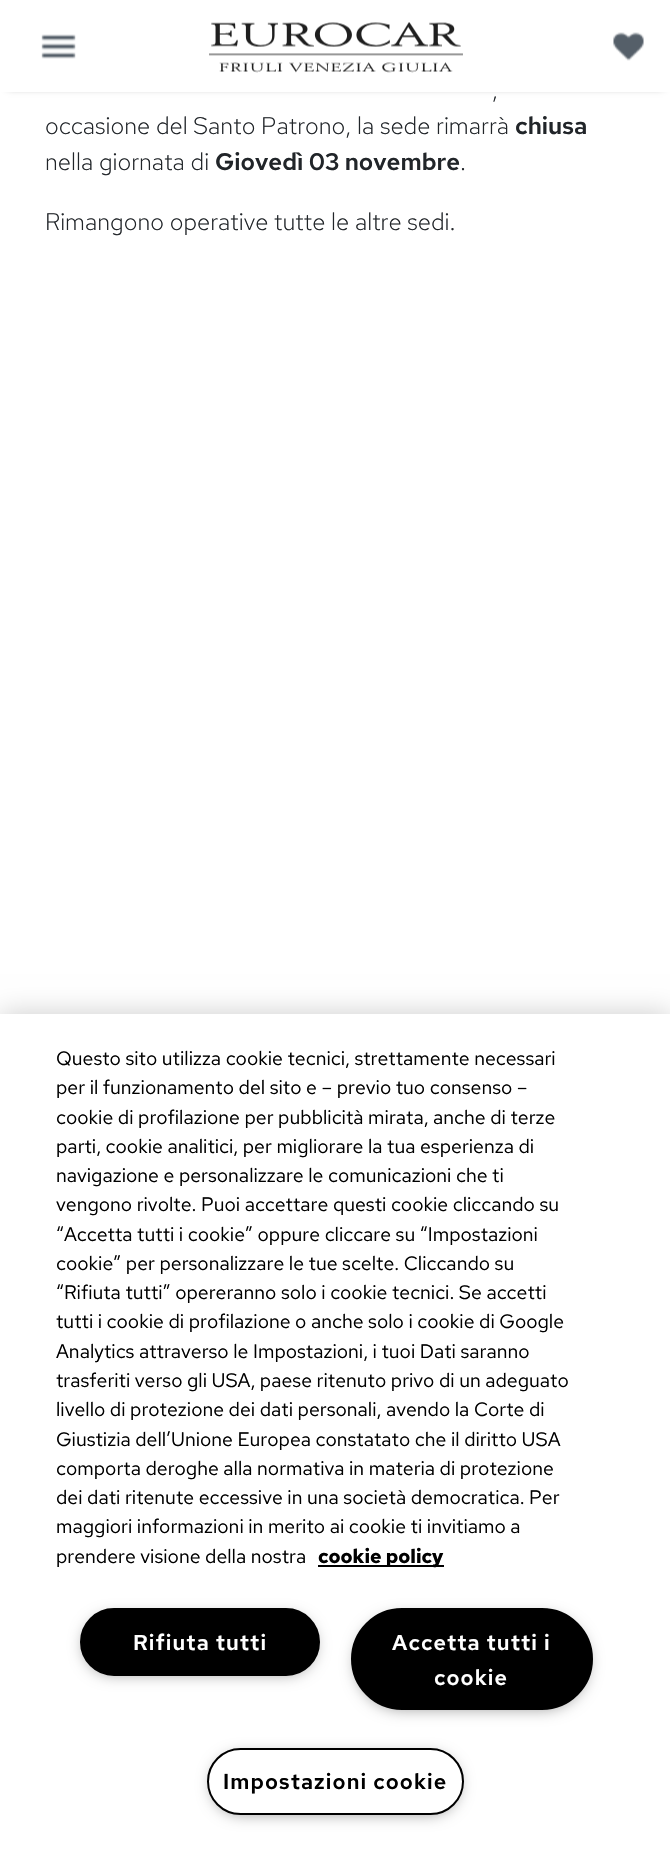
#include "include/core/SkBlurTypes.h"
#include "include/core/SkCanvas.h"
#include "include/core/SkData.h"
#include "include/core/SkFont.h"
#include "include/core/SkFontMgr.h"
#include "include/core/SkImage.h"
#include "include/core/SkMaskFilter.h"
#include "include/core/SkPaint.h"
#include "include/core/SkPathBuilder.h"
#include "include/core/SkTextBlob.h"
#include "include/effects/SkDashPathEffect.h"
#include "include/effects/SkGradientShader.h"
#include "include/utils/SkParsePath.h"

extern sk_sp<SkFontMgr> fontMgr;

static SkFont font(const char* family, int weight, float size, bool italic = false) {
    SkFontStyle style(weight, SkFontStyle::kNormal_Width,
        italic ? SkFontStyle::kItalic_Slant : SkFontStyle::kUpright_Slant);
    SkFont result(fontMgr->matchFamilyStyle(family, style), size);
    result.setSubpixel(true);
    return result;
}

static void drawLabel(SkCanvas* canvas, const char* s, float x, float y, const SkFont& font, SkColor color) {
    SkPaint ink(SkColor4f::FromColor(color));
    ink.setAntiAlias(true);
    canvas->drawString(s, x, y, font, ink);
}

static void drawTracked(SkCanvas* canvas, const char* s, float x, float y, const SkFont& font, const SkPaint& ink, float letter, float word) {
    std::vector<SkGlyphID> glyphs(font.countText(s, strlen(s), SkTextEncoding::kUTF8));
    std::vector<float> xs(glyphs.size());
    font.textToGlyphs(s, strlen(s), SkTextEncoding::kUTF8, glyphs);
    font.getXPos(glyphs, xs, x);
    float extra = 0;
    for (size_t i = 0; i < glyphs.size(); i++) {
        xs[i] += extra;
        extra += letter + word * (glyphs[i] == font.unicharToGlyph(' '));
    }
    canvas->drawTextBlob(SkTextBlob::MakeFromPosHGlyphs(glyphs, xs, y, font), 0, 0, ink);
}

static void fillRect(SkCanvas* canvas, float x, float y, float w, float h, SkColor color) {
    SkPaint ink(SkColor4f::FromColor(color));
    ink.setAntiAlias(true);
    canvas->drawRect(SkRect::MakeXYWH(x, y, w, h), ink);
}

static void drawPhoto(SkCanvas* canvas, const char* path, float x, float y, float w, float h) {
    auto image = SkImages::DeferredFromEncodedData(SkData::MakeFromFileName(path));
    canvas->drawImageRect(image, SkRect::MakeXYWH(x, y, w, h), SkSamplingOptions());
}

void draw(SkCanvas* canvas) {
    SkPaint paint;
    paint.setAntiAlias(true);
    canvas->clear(0xFFFFFFFF);
    paint.setColor(0xFF1F1F1F);
    paint.setMaskFilter(SkMaskFilter::MakeBlur(kNormal_SkBlurStyle, 4));
    canvas->drawRect(SkRect::MakeXYWH(8, 9, 655, 77), paint);
    paint.setMaskFilter(nullptr);
    fillRect(canvas, 0, 0, 670, 92, 0xFFFFFFFF);
    drawPhoto(canvas, "assets/img1.png", 41, 34, 35, 25);
    drawPhoto(canvas, "assets/img2.png", 209, 22, 254, 51);
    drawPhoto(canvas, "assets/img3.png", 613, 32, 31, 29);
    SkFont font1 = font("Red Hat Text", 300, 24);
    drawLabel(canvas, ",", 492, 98, font1, 0xFF212529);
    drawLabel(canvas, "occasione del Santo Patrono, la sede rimarrà", 45, 134, font1, 0xFF212529);
    SkFont font2 = font("Red Hat Text", 600, 24);
    drawLabel(canvas, "chiusa", 515, 134, font2, 0xFF212529);
    drawLabel(canvas, "nella giornata di", 45, 170, font1, 0xFF212529);
    drawLabel(canvas, "Giovedì 03 novembre", 215, 170, font2, 0xFF212529);
    drawLabel(canvas, ".", 460, 170, font1, 0xFF212529);
    drawLabel(canvas, "Rimangono operative tutte le altre sedi.", 45, 230, font1, 0xFF212529);
    paint.setColor(0x33000000);
    paint.setMaskFilter(SkMaskFilter::MakeBlur(kNormal_SkBlurStyle, 13.5f));
    canvas->drawRect(SkRect::MakeXYWH(0, 1014, 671, 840), paint);
    paint.setMaskFilter(nullptr);
    fillRect(canvas, 0, 1014, 670, 839, 0xFFFFFFFF);
    SkFont font3 = font("Red Hat Text", 400, 19.5f);
    drawLabel(canvas, "Questo sito utilizza cookie tecnici, strettamente necessari", 56, 1065, font3, 0xFF000000);
    drawLabel(canvas, "per il funzionamento del sito e – previo tuo consenso –", 56, 1094, font3, 0xFF000000);
    drawLabel(canvas, "cookie di profilazione per pubblicità mirata, anche di terze", 56, 1124, font3, 0xFF000000);
    drawLabel(canvas, "parti, cookie analitici, per migliorare la tua esperienza di", 56, 1153, font3, 0xFF000000);
    drawLabel(canvas, "navigazione e personalizzare le comunicazioni che ti", 56, 1182, font3, 0xFF000000);
    drawLabel(canvas, "vengono rivolte. Puoi accettare questi cookie cliccando su", 56, 1211, font3, 0xFF000000);
    drawLabel(canvas, "“Accetta tutti i cookie” oppure cliccare su “Impostazioni", 56, 1241, font3, 0xFF000000);
    drawLabel(canvas, "cookie” per personalizzare le tue scelte. Cliccando su", 56, 1270, font3, 0xFF000000);
    drawLabel(canvas, "“Rifiuta tutti” opereranno solo i cookie tecnici. Se accetti", 56, 1299, font3, 0xFF000000);
    drawLabel(canvas, "tutti i cookie di profilazione o anche solo i cookie di Google", 56, 1328, font3, 0xFF000000);
    drawLabel(canvas, "Analytics attraverso le Impostazioni, i tuoi Dati saranno", 56, 1358, font3, 0xFF000000);
    drawLabel(canvas, "trasferiti verso gli USA, paese ritenuto privo di un adeguato", 56, 1387, font3, 0xFF000000);
    drawLabel(canvas, "livello di protezione dei dati personali, avendo la Corte di", 56, 1416, font3, 0xFF000000);
    drawLabel(canvas, "Giustizia dell’Unione Europea constatato che il diritto USA", 56, 1446, font3, 0xFF000000);
    drawLabel(canvas, "comporta deroghe alla normativa in materia di protezione", 56, 1475, font3, 0xFF000000);
    drawLabel(canvas, "dei dati ritenute eccessive in una società democratica. Per", 56, 1504, font3, 0xFF000000);
    drawLabel(canvas, "maggiori informazioni in merito ai cookie ti invitiamo a", 56, 1533, font3, 0xFF000000);
    drawLabel(canvas, "prendere visione della nostra", 56, 1563, font3, 0xFF000000);
    fillRect(canvas, 318, 1565, 126, 2, 0xFF000000);
    SkFont font4 = font("Red Hat Text", 700, 19.5f);
    drawLabel(canvas, "cookie policy", 318, 1563, font4, 0xFF000000);
    paint.setColor(0xFF999999);
    paint.setMaskFilter(SkMaskFilter::MakeBlur(kNormal_SkBlurStyle, 7.5f));
    canvas->drawRoundRect(SkRect::MakeXYWH(84, 1616, 231, 58), 29, 29, paint);
    paint.setMaskFilter(nullptr);
    paint.setColor(0xFF000000);
    canvas->drawRoundRect(SkRect::MakeXYWH(81, 1609, 238, 66), 33, 33, paint);
    paint.setStroke(true);
    paint.setStrokeWidth(2);
    canvas->drawRoundRect(SkRect::MakeXYWH(81, 1609, 238, 66), 33, 33, paint);
    SkFont font5 = font("Red Hat Text", 600, 21.6f);
    paint.setStroke(false);
    paint.setColor(0xFFFFFFFF);
    drawTracked(canvas, "Rifiuta tutti", 133, 1650, font5, paint, 1.1f, 0);
    paint.setColor(0xFF999999);
    paint.setMaskFilter(SkMaskFilter::MakeBlur(kNormal_SkBlurStyle, 7.5f));
    canvas->drawRoundRect(SkRect::MakeXYWH(356, 1616, 232, 93), 46.5f, 46.5f, paint);
    paint.setMaskFilter(nullptr);
    paint.setColor(0xFF000000);
    canvas->drawRoundRect(SkRect::MakeXYWH(352, 1609, 240, 100), 50, 50, paint);
    paint.setStroke(true);
    canvas->drawRoundRect(SkRect::MakeXYWH(352, 1609, 240, 100), 50, 50, paint);
    paint.setStroke(false);
    paint.setColor(0xFFFFFFFF);
    drawTracked(canvas, "Accetta tutti i", 392, 1650, font5, paint, 1.1f, 0);
    drawTracked(canvas, "cookie", 434, 1685, font5, paint, 1.1f, 0);
    paint.setColor(0xFF999999);
    paint.setMaskFilter(SkMaskFilter::MakeBlur(kNormal_SkBlurStyle, 7.5f));
    canvas->drawRoundRect(SkRect::MakeXYWH(212, 1755, 247, 59), 29.5f, 29.5f, paint);
    paint.setMaskFilter(nullptr);
    paint.setColor(0xFFFFFFFF);
    canvas->drawRoundRect(SkRect::MakeXYWH(208, 1749, 255, 65), 32.5f, 32.5f, paint);
    paint.setStroke(true);
    paint.setColor(0xFF000000);
    canvas->drawRoundRect(SkRect::MakeXYWH(208, 1749, 255, 65), 32.5f, 32.5f, paint);
    paint.setStroke(false);
    drawTracked(canvas, "Impostazioni cookie", 223, 1789, font5, paint, 1.1f, 0);
}
